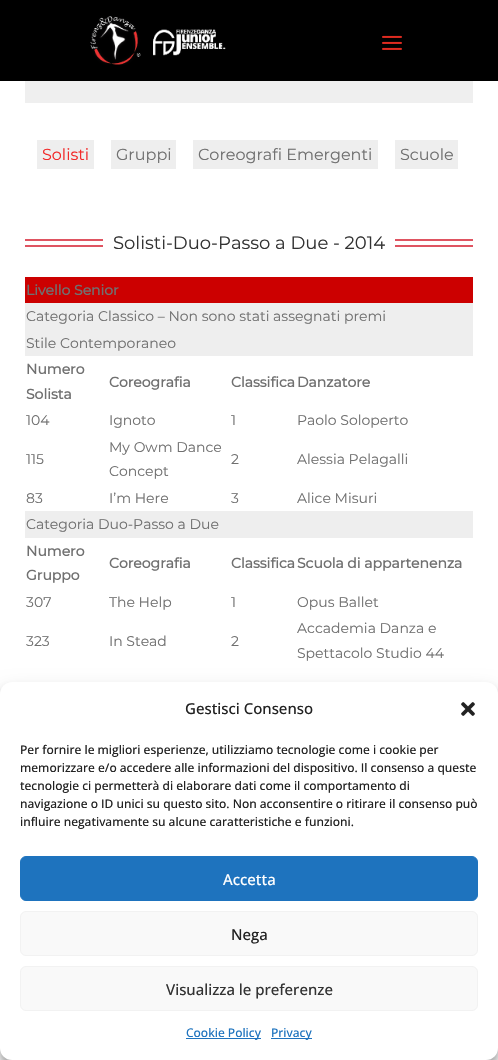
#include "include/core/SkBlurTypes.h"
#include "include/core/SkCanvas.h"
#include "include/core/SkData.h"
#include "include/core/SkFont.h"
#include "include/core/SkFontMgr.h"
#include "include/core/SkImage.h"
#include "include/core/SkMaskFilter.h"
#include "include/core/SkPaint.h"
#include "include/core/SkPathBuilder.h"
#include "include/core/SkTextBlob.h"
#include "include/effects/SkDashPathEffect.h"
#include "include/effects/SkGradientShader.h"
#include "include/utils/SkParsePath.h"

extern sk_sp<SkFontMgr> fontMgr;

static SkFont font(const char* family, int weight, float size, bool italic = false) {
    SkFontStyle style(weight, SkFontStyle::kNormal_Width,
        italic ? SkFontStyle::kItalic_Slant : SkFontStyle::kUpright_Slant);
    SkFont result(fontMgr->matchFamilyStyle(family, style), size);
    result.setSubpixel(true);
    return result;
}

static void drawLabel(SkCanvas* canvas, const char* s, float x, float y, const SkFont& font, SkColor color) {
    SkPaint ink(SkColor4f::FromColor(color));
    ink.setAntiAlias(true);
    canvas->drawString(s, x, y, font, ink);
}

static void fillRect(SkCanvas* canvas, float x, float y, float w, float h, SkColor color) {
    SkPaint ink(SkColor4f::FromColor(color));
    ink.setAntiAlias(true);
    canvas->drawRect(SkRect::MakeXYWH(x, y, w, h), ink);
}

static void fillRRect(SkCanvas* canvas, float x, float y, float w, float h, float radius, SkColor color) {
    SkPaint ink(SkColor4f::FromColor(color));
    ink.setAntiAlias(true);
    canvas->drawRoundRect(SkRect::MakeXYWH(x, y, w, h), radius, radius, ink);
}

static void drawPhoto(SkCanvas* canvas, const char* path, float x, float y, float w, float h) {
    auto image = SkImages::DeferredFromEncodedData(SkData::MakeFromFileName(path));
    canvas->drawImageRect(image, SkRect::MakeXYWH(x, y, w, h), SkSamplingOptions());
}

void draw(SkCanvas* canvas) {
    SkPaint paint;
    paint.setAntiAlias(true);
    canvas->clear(0xFFFFFFFF);
    fillRect(canvas, 0, 0, 498, 81, 0xFF000000);
    drawPhoto(canvas, "assets/img1.png", 90, 16, 136, 49);
    drawPhoto(canvas, "assets/img2.png", 382, 35, 20, 15);
    fillRect(canvas, 25, 81, 448, 22, 0xFFEFEFEF);
    fillRect(canvas, 37, 140, 57, 29, 0xFFEEEEEE);
    SkFont font1 = font("Montserrat", 100, 16);
    drawLabel(canvas, "Solisti", 42, 160, font1, 0xFFF22828);
    fillRect(canvas, 111, 140, 65, 29, 0xFFEEEEEE);
    drawLabel(canvas, "Gruppi", 116, 160, font1, 0xFF707070);
    fillRect(canvas, 193, 140, 185, 29, 0xFFEEEEEE);
    drawLabel(canvas, "Coreografi Emergenti", 198, 160, font1, 0xFF707070);
    fillRect(canvas, 395, 140, 63, 29, 0xFFEEEEEE);
    drawLabel(canvas, "Scuole", 400, 160, font1, 0xFF707070);
    fillRect(canvas, 25, 239, 78, 2, 0xFFDF5461);
    fillRect(canvas, 25, 245, 78, 2, 0xFFDF5461);
    SkFont font2 = font("Montserrat", 100, 18);
    drawLabel(canvas, "Solisti-Duo-Passo a Due - 2014", 113, 249, font2, 0xFF333333);
    fillRect(canvas, 395, 239, 78, 2, 0xFFDF5461);
    fillRect(canvas, 395, 245, 78, 2, 0xFFDF5461);
    fillRect(canvas, 25, 277, 448, 26, 0xFFCC0000);
    SkFont font3 = font("Montserrat", 700, 14);
    drawLabel(canvas, "Livello Senior", 26, 295, font3, 0xFF707070);
    fillRect(canvas, 25, 303, 448, 53, 0xFFEEEEEE);
    SkFont font4 = font("Montserrat", 100, 14);
    drawLabel(canvas, "Categoria Classico – Non sono stati assegnati premi", 26, 321, font4, 0xFF707070);
    drawLabel(canvas, "Stile Contemporaneo", 26, 348, font4, 0xFF707070);
    drawLabel(canvas, "Numero", 26, 374, font3, 0xFF707070);
    drawLabel(canvas, "Solista", 26, 399, font3, 0xFF707070);
    drawLabel(canvas, "Coreografia", 109, 387, font3, 0xFF707070);
    drawLabel(canvas, "Classifica", 231, 387, font3, 0xFF707070);
    drawLabel(canvas, "Danzatore", 297, 387, font3, 0xFF707070);
    drawLabel(canvas, "104", 26, 425, font4, 0xFF707070);
    drawLabel(canvas, "Ignoto", 109, 425, font4, 0xFF707070);
    drawLabel(canvas, "1", 231, 425, font4, 0xFF707070);
    drawLabel(canvas, "Paolo Soloperto", 297, 425, font4, 0xFF707070);
    drawLabel(canvas, "115", 26, 464, font4, 0xFF707070);
    drawLabel(canvas, "My Owm Dance", 109, 452, font4, 0xFF707070);
    drawLabel(canvas, "Concept", 109, 476, font4, 0xFF707070);
    drawLabel(canvas, "2", 231, 464, font4, 0xFF707070);
    drawLabel(canvas, "Alessia Pelagalli", 297, 464, font4, 0xFF707070);
    drawLabel(canvas, "83", 26, 503, font4, 0xFF707070);
    drawLabel(canvas, "I’m Here", 109, 503, font4, 0xFF707070);
    drawLabel(canvas, "3", 231, 503, font4, 0xFF707070);
    drawLabel(canvas, "Alice Misuri", 297, 503, font4, 0xFF707070);
    fillRect(canvas, 25, 511, 448, 27, 0xFFEEEEEE);
    drawLabel(canvas, "Categoria Duo-Passo a Due", 26, 529, font4, 0xFF707070);
    drawLabel(canvas, "Numero", 26, 556, font3, 0xFF707070);
    drawLabel(canvas, "Gruppo", 26, 580, font3, 0xFF707070);
    drawLabel(canvas, "Coreografia", 109, 568, font3, 0xFF707070);
    drawLabel(canvas, "Classifica", 231, 568, font3, 0xFF707070);
    drawLabel(canvas, "Scuola di appartenenza", 297, 568, font3, 0xFF707070);
    drawLabel(canvas, "307", 26, 607, font4, 0xFF707070);
    drawLabel(canvas, "The Help", 109, 607, font4, 0xFF707070);
    drawLabel(canvas, "1", 231, 607, font4, 0xFF707070);
    drawLabel(canvas, "Opus Ballet", 297, 607, font4, 0xFF707070);
    drawLabel(canvas, "323", 26, 646, font4, 0xFF707070);
    drawLabel(canvas, "In Stead", 109, 646, font4, 0xFF707070);
    drawLabel(canvas, "2", 231, 646, font4, 0xFF707070);
    drawLabel(canvas, "Accademia Danza e", 297, 633, font4, 0xFF707070);
    drawLabel(canvas, "Spettacolo Studio 44", 297, 658, font4, 0xFF707070);
    paint.setColor(0x3B000000);
    paint.setMaskFilter(SkMaskFilter::MakeBlur(kNormal_SkBlurStyle, 3));
    canvas->drawRoundRect(SkRect::MakeXYWH(0, 688, 498, 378), 12, 12, paint);
    paint.setMaskFilter(nullptr);
    paint.setColor(0x30000000);
    paint.setMaskFilter(SkMaskFilter::MakeBlur(kNormal_SkBlurStyle, 10));
    canvas->drawRoundRect(SkRect::MakeXYWH(0, 692, 498, 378), 12, 12, paint);
    paint.setMaskFilter(nullptr);
    fillRRect(canvas, 0, 682, 498, 378, 12, 0xFFFFFFFF);
    SkFont font5 = font("Open Sans", 500, 15);
    drawLabel(canvas, "Gestisci Consenso", 185, 714, font5, 0xFF222222);
    drawPhoto(canvas, "assets/img3.png", 461, 702, 14, 14);
    SkFont font6 = font("Open Sans", 500, 12);
    drawLabel(canvas, "Per fornire le migliori esperienze, utilizziamo tecnologie come i cookie per", 20, 754, font6, 0xFF222222);
    drawLabel(canvas, "memorizzare e/o accedere alle informazioni del dispositivo. Il consenso a queste", 20, 772, font6, 0xFF222222);
    drawLabel(canvas, "tecnologie ci permetterà di elaborare dati come il comportamento di", 20, 790, font6, 0xFF222222);
    drawLabel(canvas, "navigazione o ID unici su questo sito. Non acconsentire o ritirare il consenso può", 20, 808, font6, 0xFF222222);
    drawLabel(canvas, "influire negativamente su alcune caratteristiche e funzioni.", 20, 826, font6, 0xFF222222);
    paint.setColor(0xFF1E73BE);
    canvas->drawRoundRect(SkRect::MakeXYWH(20.5f, 856.5f, 457, 44), 5.5f, 5.5f, paint);
    paint.setStroke(true);
    paint.setStrokeWidth(1);
    canvas->drawRoundRect(SkRect::MakeXYWH(20.5f, 856.5f, 457, 44), 5.5f, 5.5f, paint);
    drawLabel(canvas, "Accetta", 223, 885, font5, 0xFFFFFFFF);
    paint.setStroke(false);
    paint.setColor(0xFFF9F9F9);
    canvas->drawRoundRect(SkRect::MakeXYWH(20.5f, 911.5f, 457, 44), 5.5f, 5.5f, paint);
    paint.setStroke(true);
    paint.setColor(0xFFF2F2F2);
    canvas->drawRoundRect(SkRect::MakeXYWH(20.5f, 911.5f, 457, 44), 5.5f, 5.5f, paint);
    drawLabel(canvas, "Nega", 231, 940, font5, 0xFF222222);
    paint.setStroke(false);
    paint.setColor(0xFFF9F9F9);
    canvas->drawRoundRect(SkRect::MakeXYWH(20.5f, 966.5f, 457, 44), 5.5f, 5.5f, paint);
    paint.setStroke(true);
    paint.setColor(0xFFF2F2F2);
    canvas->drawRoundRect(SkRect::MakeXYWH(20.5f, 966.5f, 457, 44), 5.5f, 5.5f, paint);
    drawLabel(canvas, "Visualizza le preferenze", 166, 995, font5, 0xFF333333);
    fillRect(canvas, 186, 1038, 75, 1, 0xFF1E73BE);
    drawLabel(canvas, "Cookie Policy", 186, 1037, font6, 0xFF1E73BE);
    fillRect(canvas, 271, 1038, 41, 1, 0xFF1E73BE);
    drawLabel(canvas, "Privacy", 271, 1037, font6, 0xFF1E73BE);
}
